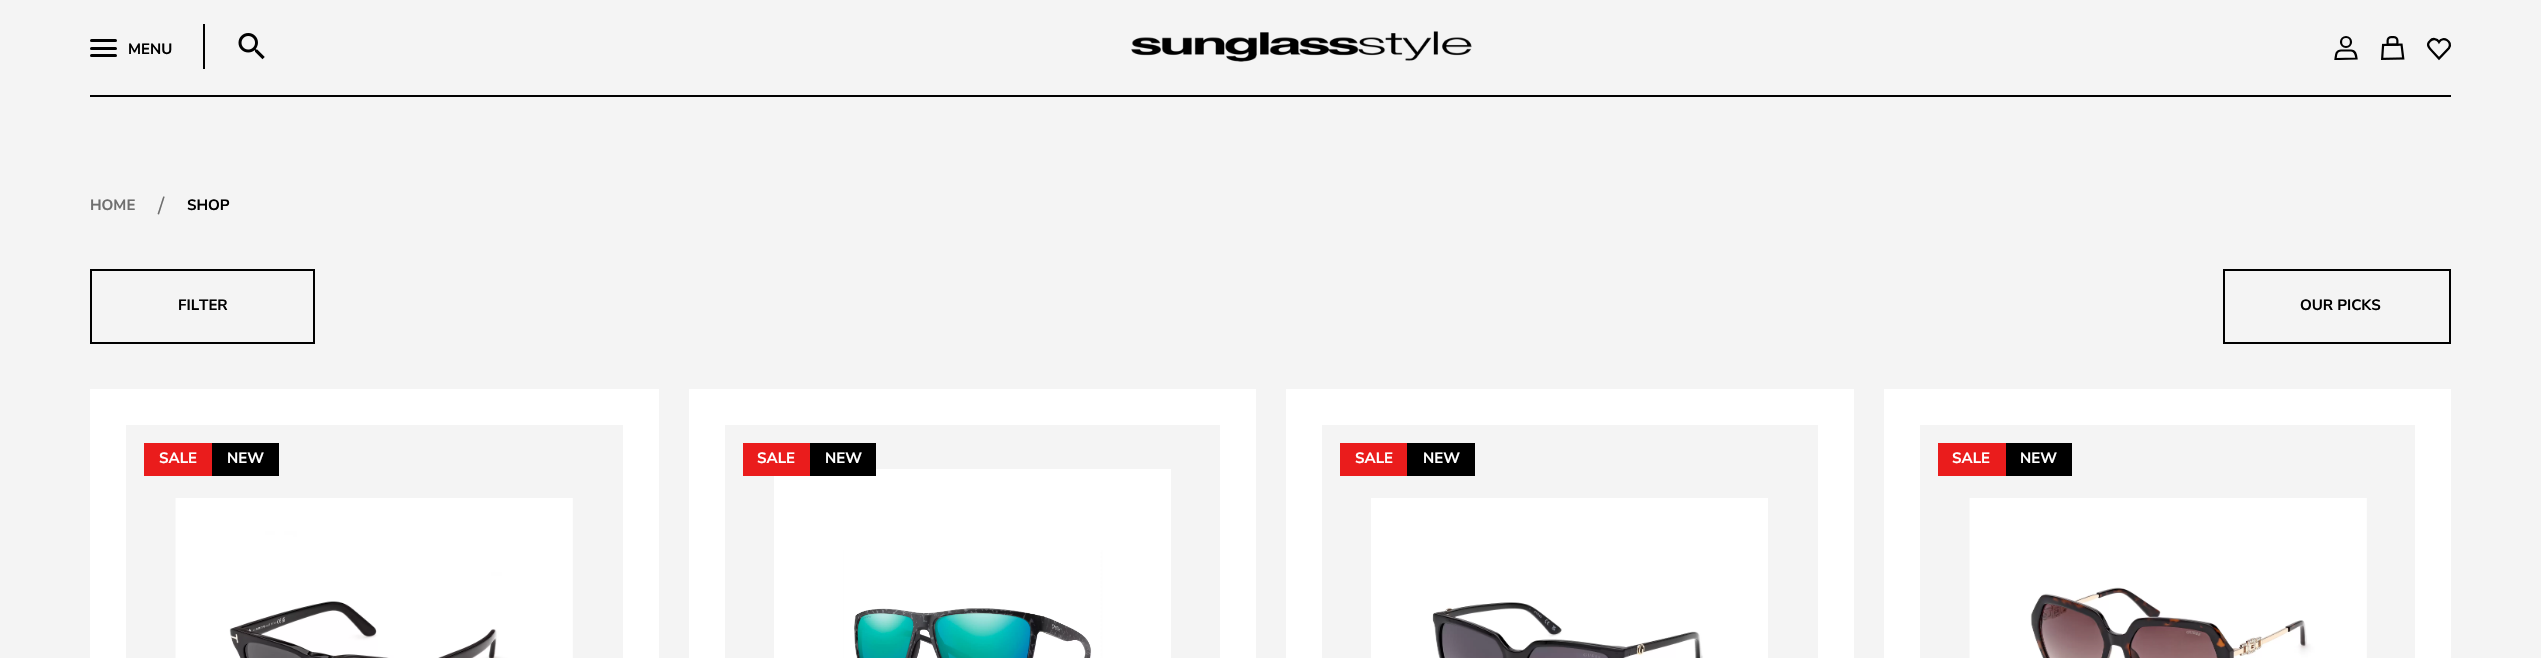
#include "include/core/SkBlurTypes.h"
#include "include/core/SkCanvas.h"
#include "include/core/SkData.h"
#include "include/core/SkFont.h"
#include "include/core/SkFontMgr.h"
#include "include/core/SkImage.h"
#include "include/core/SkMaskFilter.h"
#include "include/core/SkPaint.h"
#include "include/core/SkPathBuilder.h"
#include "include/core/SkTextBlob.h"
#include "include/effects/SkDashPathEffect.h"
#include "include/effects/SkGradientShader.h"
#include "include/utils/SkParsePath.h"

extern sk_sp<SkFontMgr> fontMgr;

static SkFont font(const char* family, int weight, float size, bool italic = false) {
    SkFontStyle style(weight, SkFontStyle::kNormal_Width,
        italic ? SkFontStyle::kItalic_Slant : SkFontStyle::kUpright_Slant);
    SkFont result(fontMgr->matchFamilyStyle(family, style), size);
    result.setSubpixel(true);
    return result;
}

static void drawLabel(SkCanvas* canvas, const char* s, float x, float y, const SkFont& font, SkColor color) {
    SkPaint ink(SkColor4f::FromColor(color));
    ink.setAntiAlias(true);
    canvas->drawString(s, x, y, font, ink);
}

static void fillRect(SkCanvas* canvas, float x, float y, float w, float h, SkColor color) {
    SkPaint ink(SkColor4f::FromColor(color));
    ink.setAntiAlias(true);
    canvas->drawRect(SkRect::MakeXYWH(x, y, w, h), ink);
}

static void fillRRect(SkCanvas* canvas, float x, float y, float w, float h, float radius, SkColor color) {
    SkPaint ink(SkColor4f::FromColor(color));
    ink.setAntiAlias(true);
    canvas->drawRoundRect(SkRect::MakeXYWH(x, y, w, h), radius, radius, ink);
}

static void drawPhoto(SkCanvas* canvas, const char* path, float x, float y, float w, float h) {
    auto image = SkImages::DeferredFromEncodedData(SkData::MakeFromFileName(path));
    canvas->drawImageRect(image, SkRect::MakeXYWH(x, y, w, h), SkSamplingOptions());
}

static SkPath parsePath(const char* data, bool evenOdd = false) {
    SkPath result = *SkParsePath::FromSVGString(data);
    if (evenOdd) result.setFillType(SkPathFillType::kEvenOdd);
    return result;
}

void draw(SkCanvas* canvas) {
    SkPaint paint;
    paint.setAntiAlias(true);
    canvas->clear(0xFFF4F4F4);
    fillRRect(canvas, 90, 47, 27, 3, 1.5f, 0xFF000000);
    fillRRect(canvas, 90, 39, 27, 3, 1.5f, 0xFF000000);
    fillRRect(canvas, 90, 54, 27, 3, 1.5f, 0xFF000000);
    SkFont font1 = font("Nunito Sans", 700, 15);
    drawLabel(canvas, "MENU", 128, 54, font1, 0xFF000000);
    fillRect(canvas, 203, 24, 2, 45, 0xFF000000);
    drawPhoto(canvas, "assets/img1.png", 238, 33, 27, 27);
    drawPhoto(canvas, "assets/img2.png", 1131, 31, 341, 31);
    paint.setStroke(true);
    paint.setStrokeWidth(2.2f);
    paint.setColor(0xFF000000);
    canvas->drawCircle(2346, 42, 5, paint);
    canvas->save();
    canvas->clipRect(SkRect::MakeXYWH(2334, 36, 24, 24));
    canvas->drawPath(parsePath("M2351 50.5C2355.5 50.5 2356 55 2356.5 58.5L2335.5 59C2336 55 2336 50.5 2341 50.5Z"), paint);
    canvas->restore();
    drawPhoto(canvas, "assets/img3.png", 2381, 36, 24, 24);
    paint.setStrokeWidth(2.3f);
    canvas->drawPath(parsePath("M2430 41C2432.5 38 2437 38.5 2439 42C2443 35.5 2453 41.5 2449 48L2439 58.5L2433 52C2430 49 2425.5 45 2430 41Z"), paint);
    fillRect(canvas, 90, 95, 2361, 2, 0xFF000000);
    drawLabel(canvas, "HOME", 90, 210, font1, 0xFF6E6E6E);
    SkFont font2 = font("Nunito Sans", 400, 22);
    drawLabel(canvas, "/", 158, 213, font2, 0xFF6E6E6E);
    drawLabel(canvas, "SHOP", 187, 210, font1, 0xFF000000);
    paint.setStrokeWidth(2);
    canvas->drawRect(SkRect::MakeXYWH(91, 270, 223, 73), paint);
    drawLabel(canvas, "FILTER", 178, 310, font1, 0xFF000000);
    canvas->drawRect(SkRect::MakeXYWH(2224, 270, 226, 73), paint);
    drawLabel(canvas, "OUR PICKS", 2300, 310, font1, 0xFF000000);
    fillRect(canvas, 90, 389, 569, 269, 0xFFFFFFFF);
    fillRect(canvas, 126, 425, 497, 233, 0xFFF4F4F4);
    fillRect(canvas, 144, 443, 68, 33, 0xFFEA1C1C);
    drawLabel(canvas, "SALE", 159, 463, font1, 0xFFFFFFFF);
    fillRect(canvas, 212, 443, 67, 33, 0xFF000000);
    drawLabel(canvas, "NEW", 227, 463, font1, 0xFFFFFFFF);
    drawPhoto(canvas, "assets/img4.png", 175, 498, 398, 160);
    fillRect(canvas, 689, 389, 567, 269, 0xFFFFFFFF);
    fillRect(canvas, 725, 425, 495, 233, 0xFFF4F4F4);
    drawPhoto(canvas, "assets/img5.png", 774, 469, 397, 189);
    fillRect(canvas, 743, 443, 67, 33, 0xFFEA1C1C);
    drawLabel(canvas, "SALE", 757, 463, font1, 0xFFFFFFFF);
    fillRect(canvas, 810, 443, 66, 33, 0xFF000000);
    drawLabel(canvas, "NEW", 825, 463, font1, 0xFFFFFFFF);
    fillRect(canvas, 1286, 389, 568, 269, 0xFFFFFFFF);
    fillRect(canvas, 1322, 425, 496, 233, 0xFFF4F4F4);
    fillRect(canvas, 1340, 443, 67, 33, 0xFFEA1C1C);
    drawLabel(canvas, "SALE", 1355, 463, font1, 0xFFFFFFFF);
    fillRect(canvas, 1407, 443, 68, 33, 0xFF000000);
    drawLabel(canvas, "NEW", 1423, 463, font1, 0xFFFFFFFF);
    drawPhoto(canvas, "assets/img6.png", 1371, 498, 397, 160);
    fillRect(canvas, 1884, 389, 567, 269, 0xFFFFFFFF);
    fillRect(canvas, 1920, 425, 495, 233, 0xFFF4F4F4);
    fillRect(canvas, 1938, 443, 68, 33, 0xFFEA1C1C);
    drawLabel(canvas, "SALE", 1952, 463, font1, 0xFFFFFFFF);
    fillRect(canvas, 2006, 443, 66, 33, 0xFF000000);
    drawLabel(canvas, "NEW", 2020, 463, font1, 0xFFFFFFFF);
    drawPhoto(canvas, "assets/img7.png", 1969, 498, 398, 160);
}
